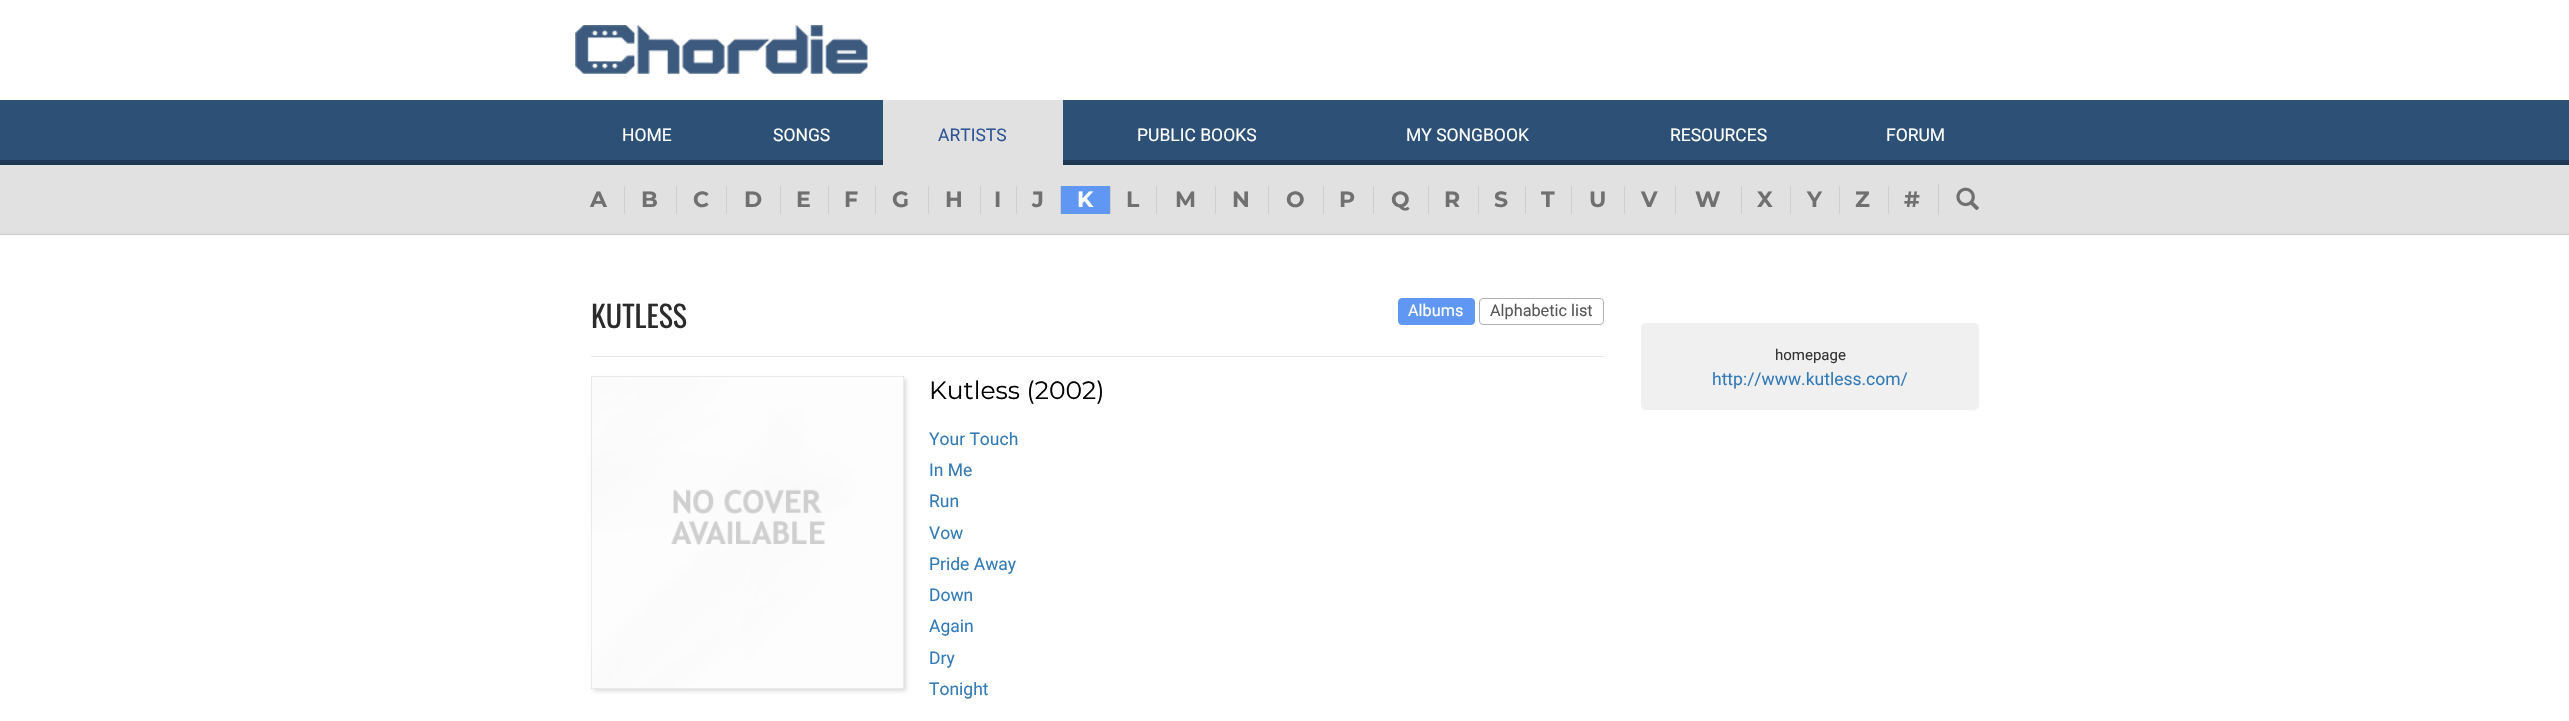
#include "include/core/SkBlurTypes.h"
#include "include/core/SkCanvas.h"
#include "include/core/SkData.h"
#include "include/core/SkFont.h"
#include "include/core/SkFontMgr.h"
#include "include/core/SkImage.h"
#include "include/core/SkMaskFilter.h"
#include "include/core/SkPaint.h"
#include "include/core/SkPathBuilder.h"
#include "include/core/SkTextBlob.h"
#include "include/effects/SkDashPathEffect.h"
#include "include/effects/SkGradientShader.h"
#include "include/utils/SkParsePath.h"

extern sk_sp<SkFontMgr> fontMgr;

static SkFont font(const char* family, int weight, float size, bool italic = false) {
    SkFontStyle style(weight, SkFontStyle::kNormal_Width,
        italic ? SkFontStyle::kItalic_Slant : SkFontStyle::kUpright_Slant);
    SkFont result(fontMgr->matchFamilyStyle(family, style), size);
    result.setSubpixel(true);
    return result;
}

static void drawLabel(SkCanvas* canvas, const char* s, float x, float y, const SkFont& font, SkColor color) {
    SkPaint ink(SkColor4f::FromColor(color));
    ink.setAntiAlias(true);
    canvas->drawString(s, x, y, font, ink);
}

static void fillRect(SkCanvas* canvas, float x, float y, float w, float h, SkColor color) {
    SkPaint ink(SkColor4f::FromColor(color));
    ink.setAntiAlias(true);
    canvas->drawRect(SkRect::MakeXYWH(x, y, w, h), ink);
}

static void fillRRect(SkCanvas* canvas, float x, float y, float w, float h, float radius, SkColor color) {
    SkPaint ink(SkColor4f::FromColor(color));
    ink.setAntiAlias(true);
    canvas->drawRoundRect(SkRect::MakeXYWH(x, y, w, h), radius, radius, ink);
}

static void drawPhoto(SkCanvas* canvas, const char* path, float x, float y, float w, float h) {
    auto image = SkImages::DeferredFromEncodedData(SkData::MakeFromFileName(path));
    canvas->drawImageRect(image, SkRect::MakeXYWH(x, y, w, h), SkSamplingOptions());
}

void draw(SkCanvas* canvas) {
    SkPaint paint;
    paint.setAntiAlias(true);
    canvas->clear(0xFFFFFFFF);
    drawPhoto(canvas, "assets/img1.png", 575, 25, 293, 49);
    fillRect(canvas, 0, 100, 2569, 60, 0xFF2D5077);
    fillRect(canvas, 0, 160, 2569, 5, 0xFF1F3853);
    SkFont font1 = font("Roboto", 400, 17.5f);
    drawLabel(canvas, "HOME", 622, 141, font1, 0xFFFFFFFF);
    drawLabel(canvas, "SONGS", 773, 141, font1, 0xFFFFFFFF);
    fillRect(canvas, 883, 100, 180, 65, 0xFFE1E1E1);
    drawLabel(canvas, "ARTISTS", 938, 141, font1, 0xFF2F5595);
    drawLabel(canvas, "PUBLIC BOOKS", 1137, 141, font1, 0xFFFFFFFF);
    drawLabel(canvas, "MY SONGBOOK", 1406, 141, font1, 0xFFFFFFFF);
    drawLabel(canvas, "RESOURCES", 1670, 141, font1, 0xFFFFFFFF);
    drawLabel(canvas, "FORUM", 1886, 141, font1, 0xFFFFFFFF);
    fillRect(canvas, 0, 165, 2569, 69, 0xFFE1E1E1);
    fillRect(canvas, 0, 234, 2569, 1, 0xFFCACACA);
    SkFont font2 = font("Montserrat", 700, 22);
    drawLabel(canvas, "A", 590, 207, font2, 0xFF707070);
    fillRect(canvas, 624, 186, 1, 28, 0xFFCECECE);
    drawLabel(canvas, "B", 641, 207, font2, 0xFF707070);
    fillRect(canvas, 676, 186, 1, 28, 0xFFCECECE);
    drawLabel(canvas, "C", 693, 207, font2, 0xFF707070);
    fillRect(canvas, 726, 186, 1, 28, 0xFFCECECE);
    drawLabel(canvas, "D", 744, 207, font2, 0xFF707070);
    fillRect(canvas, 780, 186, 1, 28, 0xFFCECECE);
    drawLabel(canvas, "E", 796, 207, font2, 0xFF707070);
    fillRect(canvas, 828, 186, 1, 28, 0xFFCECECE);
    drawLabel(canvas, "F", 844, 207, font2, 0xFF707070);
    fillRect(canvas, 875, 186, 1, 28, 0xFFCECECE);
    drawLabel(canvas, "G", 892, 207, font2, 0xFF707070);
    fillRect(canvas, 928, 186, 1, 28, 0xFFCECECE);
    drawLabel(canvas, "H", 945, 207, font2, 0xFF707070);
    fillRect(canvas, 980, 186, 1, 28, 0xFFCECECE);
    drawLabel(canvas, "I", 994, 207, font2, 0xFF707070);
    fillRect(canvas, 1016, 186, 1, 28, 0xFFCECECE);
    drawLabel(canvas, "J", 1032, 207, font2, 0xFF707070);
    fillRect(canvas, 1061, 186, 49, 28, 0xFF6097F3);
    fillRect(canvas, 1060, 186, 1, 28, 0xFFCECECE);
    drawLabel(canvas, "K", 1077, 207, font2, 0xFFFFFFFF);
    fillRect(canvas, 1110, 186, 1, 28, 0xFFCECECE);
    drawLabel(canvas, "L", 1126, 207, font2, 0xFF707070);
    fillRect(canvas, 1156, 186, 1, 28, 0xFFCECECE);
    drawLabel(canvas, "M", 1175, 207, font2, 0xFF707070);
    fillRect(canvas, 1215, 186, 1, 28, 0xFFCECECE);
    drawLabel(canvas, "N", 1232, 207, font2, 0xFF707070);
    fillRect(canvas, 1268, 186, 1, 28, 0xFFCECECE);
    drawLabel(canvas, "O", 1286, 207, font2, 0xFF707070);
    fillRect(canvas, 1323, 186, 1, 28, 0xFFCECECE);
    drawLabel(canvas, "P", 1339, 207, font2, 0xFF707070);
    fillRect(canvas, 1373, 186, 1, 28, 0xFFCECECE);
    drawLabel(canvas, "Q", 1391, 207, font2, 0xFF707070);
    fillRect(canvas, 1428, 186, 1, 28, 0xFFCECECE);
    drawLabel(canvas, "R", 1444, 207, font2, 0xFF707070);
    fillRect(canvas, 1478, 186, 1, 28, 0xFFCECECE);
    drawLabel(canvas, "S", 1494, 207, font2, 0xFF707070);
    fillRect(canvas, 1525, 186, 1, 28, 0xFFCECECE);
    drawLabel(canvas, "T", 1541, 207, font2, 0xFF707070);
    fillRect(canvas, 1571, 186, 1, 28, 0xFFCECECE);
    drawLabel(canvas, "U", 1589, 207, font2, 0xFF707070);
    fillRect(canvas, 1624, 186, 1, 28, 0xFFCECECE);
    drawLabel(canvas, "V", 1641, 207, font2, 0xFF707070);
    fillRect(canvas, 1675, 186, 1, 28, 0xFFCECECE);
    drawLabel(canvas, "W", 1695, 207, font2, 0xFF707070);
    fillRect(canvas, 1741, 186, 1, 28, 0xFFCECECE);
    drawLabel(canvas, "X", 1757, 207, font2, 0xFF707070);
    fillRect(canvas, 1790, 186, 1, 28, 0xFFCECECE);
    drawLabel(canvas, "Y", 1807, 207, font2, 0xFF707070);
    fillRect(canvas, 1839, 186, 1, 28, 0xFFCECECE);
    drawLabel(canvas, "Z", 1855, 207, font2, 0xFF707070);
    fillRect(canvas, 1888, 186, 1, 28, 0xFFCECECE);
    drawLabel(canvas, "#", 1904, 207, font2, 0xFF707070);
    fillRect(canvas, 1938, 184, 1, 31, 0xFFCECECE);
    drawPhoto(canvas, "assets/img2.png", 1956, 187, 23, 24);
    fillRect(canvas, 591, 356, 1013, 1, 0xFFE5E5E5);
    SkFont font3 = font("Oswald", 400, 30);
    drawLabel(canvas, "KUTLESS", 591, 328, font3, 0xFF2B2B2B);
    paint.setColor(0xFF6097F3);
    canvas->drawRoundRect(SkRect::MakeXYWH(1398.5f, 298.5f, 76, 26), 3.5f, 3.5f, paint);
    paint.setStroke(true);
    paint.setStrokeWidth(1);
    canvas->drawRoundRect(SkRect::MakeXYWH(1398.5f, 298.5f, 76, 26), 3.5f, 3.5f, paint);
    SkFont font4 = font("Roboto", 400, 16.25f);
    drawLabel(canvas, "Albums", 1408, 316, font4, 0xFFFFFFFF);
    paint.setColor(0xFFADB2B6);
    canvas->drawRoundRect(SkRect::MakeXYWH(1479.5f, 298.5f, 124, 26), 3.5f, 3.5f, paint);
    drawLabel(canvas, "Alphabetic list", 1490, 316, font4, 0xFF575757);
    paint.setStroke(false);
    paint.setColor(0x26000000);
    paint.setMaskFilter(SkMaskFilter::MakeBlur(kNormal_SkBlurStyle, 2));
    canvas->drawRect(SkRect::MakeXYWH(594, 379, 312, 312), paint);
    paint.setMaskFilter(nullptr);
    fillRect(canvas, 591, 376, 313, 313, 0xFFD3D3D3);
    drawPhoto(canvas, "assets/img3.png", 591, 376, 313, 313);
    SkFont font5 = font("Montserrat", 400, 25);
    drawLabel(canvas, "Kutless (2002)", 929, 399, font5, 0xFF000000);
    drawLabel(canvas, "Your Touch", 929, 445, font1, 0xFF337AB7);
    drawLabel(canvas, "In Me", 929, 476, font1, 0xFF337AB7);
    drawLabel(canvas, "Run", 929, 507, font1, 0xFF337AB7);
    drawLabel(canvas, "Vow", 929, 539, font1, 0xFF337AB7);
    drawLabel(canvas, "Pride Away", 929, 570, font1, 0xFF337AB7);
    drawLabel(canvas, "Down", 929, 601, font1, 0xFF337AB7);
    drawLabel(canvas, "Again", 929, 632, font1, 0xFF337AB7);
    drawLabel(canvas, "Dry", 929, 664, font1, 0xFF337AB7);
    drawLabel(canvas, "Tonight", 929, 695, font1, 0xFF337AB7);
    fillRRect(canvas, 1641, 323, 338, 87, 5, 0xFFF0F0F0);
    SkFont font6 = font("Roboto", 400, 15);
    drawLabel(canvas, "homepage", 1775, 360, font6, 0xFF333333);
    drawLabel(canvas, "http://www.kutless.com/", 1712, 385, font1, 0xFF337AB7);
}
